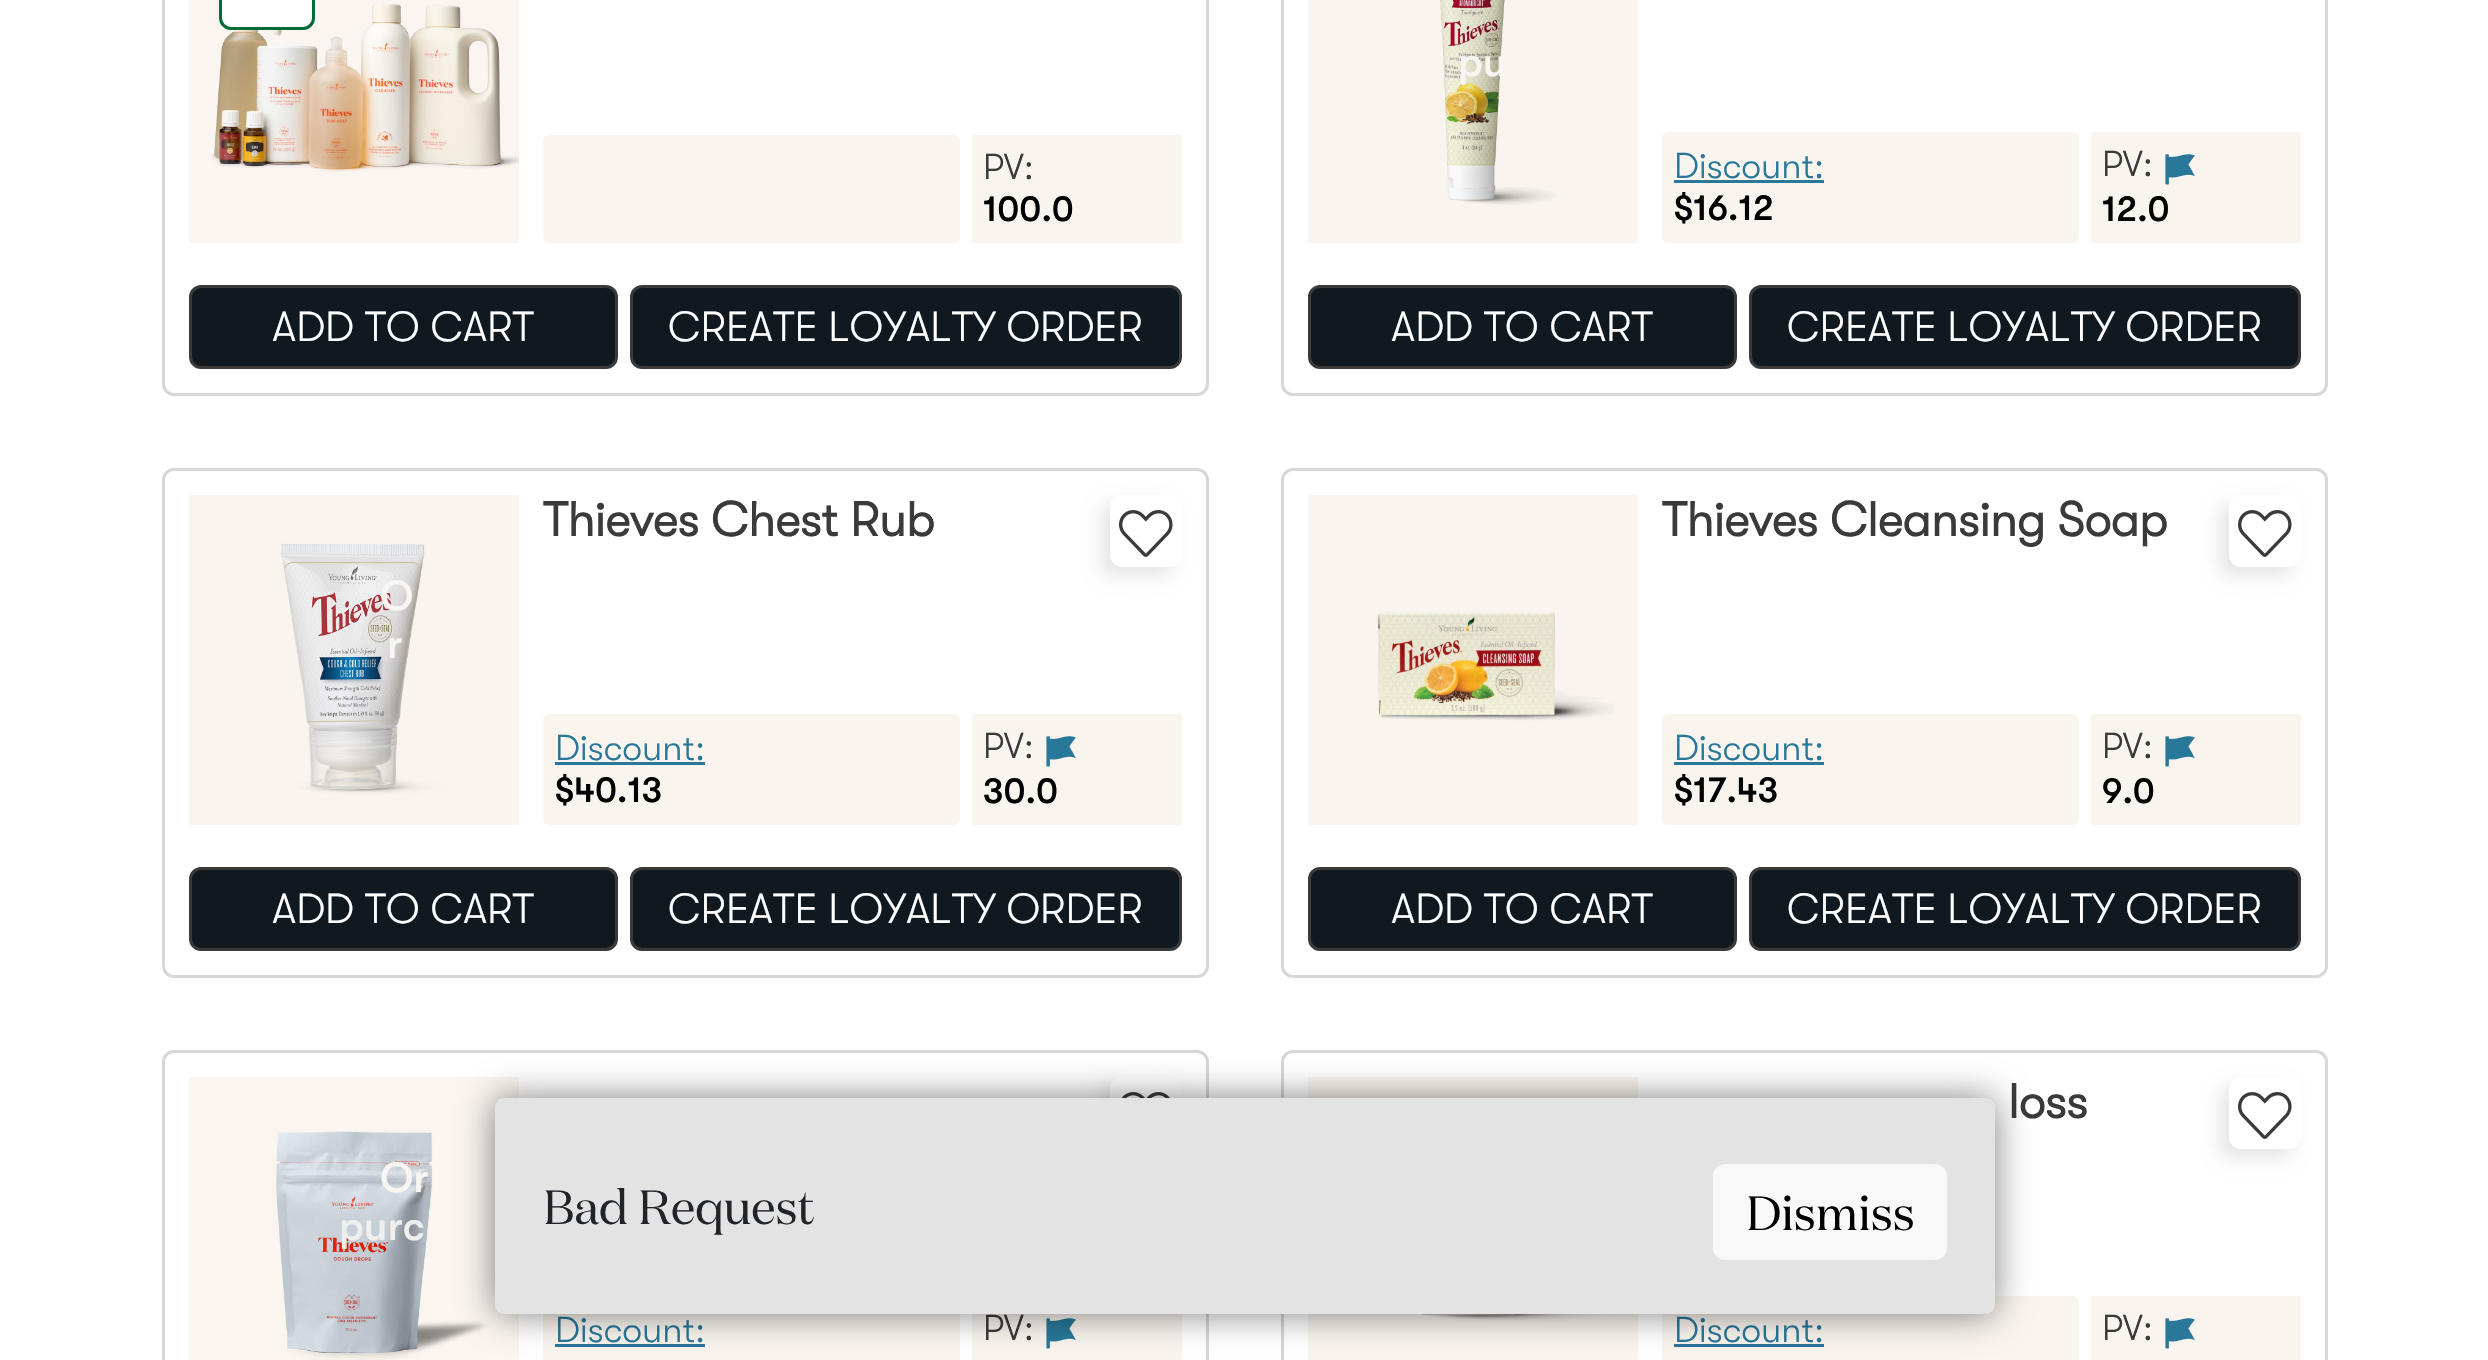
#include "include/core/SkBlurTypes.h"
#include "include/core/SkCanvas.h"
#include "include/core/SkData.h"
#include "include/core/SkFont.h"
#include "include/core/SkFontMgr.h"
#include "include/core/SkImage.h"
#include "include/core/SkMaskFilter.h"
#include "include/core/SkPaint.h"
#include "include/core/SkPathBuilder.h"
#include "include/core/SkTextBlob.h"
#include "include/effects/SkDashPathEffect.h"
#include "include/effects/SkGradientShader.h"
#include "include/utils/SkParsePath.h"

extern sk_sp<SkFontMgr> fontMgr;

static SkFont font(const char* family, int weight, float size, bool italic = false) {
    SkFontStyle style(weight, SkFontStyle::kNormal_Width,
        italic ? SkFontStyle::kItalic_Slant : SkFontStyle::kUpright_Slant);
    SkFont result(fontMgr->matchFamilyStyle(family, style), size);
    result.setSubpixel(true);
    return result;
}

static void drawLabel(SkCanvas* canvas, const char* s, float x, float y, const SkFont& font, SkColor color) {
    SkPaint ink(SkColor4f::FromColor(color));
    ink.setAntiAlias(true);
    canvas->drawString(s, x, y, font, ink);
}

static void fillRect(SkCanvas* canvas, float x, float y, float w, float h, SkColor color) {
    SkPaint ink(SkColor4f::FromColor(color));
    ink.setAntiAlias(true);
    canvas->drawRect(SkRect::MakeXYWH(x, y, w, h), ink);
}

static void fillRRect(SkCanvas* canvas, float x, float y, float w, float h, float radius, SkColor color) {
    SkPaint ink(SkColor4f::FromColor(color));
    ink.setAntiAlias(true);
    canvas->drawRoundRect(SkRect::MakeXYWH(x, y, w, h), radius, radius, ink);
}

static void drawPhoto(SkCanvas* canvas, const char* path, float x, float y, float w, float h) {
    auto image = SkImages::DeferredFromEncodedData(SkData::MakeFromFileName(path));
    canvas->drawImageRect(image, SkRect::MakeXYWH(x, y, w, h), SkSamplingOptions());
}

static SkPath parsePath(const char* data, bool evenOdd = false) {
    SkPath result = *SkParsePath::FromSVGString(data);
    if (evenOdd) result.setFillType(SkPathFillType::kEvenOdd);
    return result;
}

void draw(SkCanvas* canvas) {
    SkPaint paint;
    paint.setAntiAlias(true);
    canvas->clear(0xFFFFFFFF);
    paint.setStroke(true);
    paint.setStrokeWidth(3);
    paint.setColor(0xFFD7D7D7);
    canvas->drawRoundRect(SkRect::MakeXYWH(163.5f, -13.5f, 1044, 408), 10.5f, 10.5f, paint);
    drawPhoto(canvas, "assets/img1.png", 189, 0, 330, 243);
    paint.setStroke(false);
    paint.setColor(0xFFFFFFFF);
    canvas->drawRoundRect(SkRect::MakeXYWH(220.5f, -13.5f, 93, 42), 10.5f, 10.5f, paint);
    paint.setStroke(true);
    paint.setColor(0xFF046A38);
    canvas->drawRoundRect(SkRect::MakeXYWH(220.5f, -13.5f, 93, 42), 10.5f, 10.5f, paint);
    fillRRect(canvas, 543, 135, 417, 108, 6, 0xFFF9F4EE);
    fillRect(canvas, 972, 135, 210, 108, 0xFFF9F4EE);
    SkFont font1 = font("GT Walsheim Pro", 300, 36);
    drawLabel(canvas, "PV:", 983, 179, font1, 0xFF3A3A3A);
    SkFont font2 = font("GT Walsheim Pro", 500, 36);
    drawLabel(canvas, "100.0", 983, 221, font2, 0xFF000000);
    paint.setStroke(false);
    paint.setColor(0xFF101820);
    canvas->drawRoundRect(SkRect::MakeXYWH(190.5f, 286.5f, 426, 81), 10.5f, 10.5f, paint);
    paint.setStroke(true);
    paint.setColor(0xFF3A3A3A);
    canvas->drawRoundRect(SkRect::MakeXYWH(190.5f, 286.5f, 426, 81), 10.5f, 10.5f, paint);
    SkFont font3 = font("GT Walsheim Pro", 300, 42);
    drawLabel(canvas, "ADD TO CART", 272, 341, font3, 0xFFFFFFFF);
    paint.setStroke(false);
    paint.setColor(0xFF101820);
    canvas->drawRoundRect(SkRect::MakeXYWH(631.5f, 286.5f, 549, 81), 10.5f, 10.5f, paint);
    paint.setStroke(true);
    paint.setColor(0xFF3A3A3A);
    canvas->drawRoundRect(SkRect::MakeXYWH(631.5f, 286.5f, 549, 81), 10.5f, 10.5f, paint);
    drawLabel(canvas, "CREATE LOYALTY ORDER", 668, 341, font3, 0xFFFFFFFF);
    paint.setColor(0xFFD7D7D7);
    canvas->drawRoundRect(SkRect::MakeXYWH(1282.5f, -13.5f, 1044, 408), 10.5f, 10.5f, paint);
    drawPhoto(canvas, "assets/img2.png", 1308, 0, 330, 243);
    fillRRect(canvas, 1662, 132, 417, 111, 6, 0xFFF9F4EE);
    SkFont font4 = font("GT Walsheim Pro", 500, 42);
    drawLabel(canvas, "pu", 1458, 76, font4, 0xFFF8F6F3);
    drawLabel(canvas, "Discount:", 1674, 178, font1, 0xFF297799);
    fillRect(canvas, 1674, 180, 150, 3, 0xFF297799);
    drawLabel(canvas, "$16.12", 1674, 220, font2, 0xFF000000);
    fillRect(canvas, 2091, 132, 210, 111, 0xFFF9F4EE);
    drawLabel(canvas, "PV:", 2102, 176, font1, 0xFF3A3A3A);
    drawPhoto(canvas, "assets/img3.png", 2165, 154, 30, 31);
    drawLabel(canvas, "12.0", 2102, 221, font2, 0xFF000000);
    paint.setStroke(false);
    paint.setColor(0xFF101820);
    canvas->drawRoundRect(SkRect::MakeXYWH(1309.5f, 286.5f, 426, 81), 10.5f, 10.5f, paint);
    paint.setStroke(true);
    paint.setColor(0xFF3A3A3A);
    canvas->drawRoundRect(SkRect::MakeXYWH(1309.5f, 286.5f, 426, 81), 10.5f, 10.5f, paint);
    drawLabel(canvas, "ADD TO CART", 1391, 341, font3, 0xFFFFFFFF);
    paint.setStroke(false);
    paint.setColor(0xFF101820);
    canvas->drawRoundRect(SkRect::MakeXYWH(1750.5f, 286.5f, 549, 81), 10.5f, 10.5f, paint);
    paint.setStroke(true);
    paint.setColor(0xFF3A3A3A);
    canvas->drawRoundRect(SkRect::MakeXYWH(1750.5f, 286.5f, 549, 81), 10.5f, 10.5f, paint);
    drawLabel(canvas, "CREATE LOYALTY ORDER", 1787, 341, font3, 0xFFFFFFFF);
    paint.setColor(0xFFD7D7D7);
    canvas->drawRoundRect(SkRect::MakeXYWH(163.5f, 469.5f, 1044, 507), 10.5f, 10.5f, paint);
    drawPhoto(canvas, "assets/img4.png", 189, 495, 330, 330);
    SkFont font5 = font("GT Walsheim Pro", 700, 48);
    drawLabel(canvas, "Thieves Chest Rub", 543, 536, font5, 0xFF3A3A3A);
    fillRRect(canvas, 543, 714, 417, 111, 6, 0xFFF9F4EE);
    drawLabel(canvas, "O", 380, 610, font4, 0xFFF8F6F3);
    drawLabel(canvas, "r", 387, 658, font4, 0xFFF8F6F3);
    drawLabel(canvas, "Discount:", 555, 760, font1, 0xFF297799);
    fillRect(canvas, 555, 762, 150, 3, 0xFF297799);
    drawLabel(canvas, "$40.13", 555, 802, font2, 0xFF000000);
    fillRect(canvas, 972, 714, 210, 111, 0xFFF9F4EE);
    drawLabel(canvas, "PV:", 983, 758, font1, 0xFF3A3A3A);
    drawPhoto(canvas, "assets/img3.png", 1046, 736, 30, 31);
    drawLabel(canvas, "30.0", 983, 803, font2, 0xFF000000);
    canvas->save();
    canvas->clipPath(parsePath("M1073 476H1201V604H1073ZM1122 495H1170C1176.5 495 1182 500.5 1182 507V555C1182 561.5 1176.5 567 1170 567H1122C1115.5 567 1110 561.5 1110 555V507C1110 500.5 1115.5 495 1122 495Z", true), true);
    paint.setStroke(false);
    paint.setColor(0x1A000000);
    paint.setMaskFilter(SkMaskFilter::MakeBlur(kNormal_SkBlurStyle, 9));
    canvas->drawRoundRect(SkRect::MakeXYWH(1101, 504, 72, 72), 12, 12, paint);
    paint.setMaskFilter(nullptr);
    canvas->restore();
    drawPhoto(canvas, "assets/img5.png", 1119, 510, 54, 47);
    paint.setColor(0xFF101820);
    canvas->drawRoundRect(SkRect::MakeXYWH(190.5f, 868.5f, 426, 81), 10.5f, 10.5f, paint);
    paint.setStroke(true);
    paint.setColor(0xFF3A3A3A);
    canvas->drawRoundRect(SkRect::MakeXYWH(190.5f, 868.5f, 426, 81), 10.5f, 10.5f, paint);
    drawLabel(canvas, "ADD TO CART", 272, 923, font3, 0xFFFFFFFF);
    paint.setStroke(false);
    paint.setColor(0xFF101820);
    canvas->drawRoundRect(SkRect::MakeXYWH(631.5f, 868.5f, 549, 81), 10.5f, 10.5f, paint);
    paint.setStroke(true);
    paint.setColor(0xFF3A3A3A);
    canvas->drawRoundRect(SkRect::MakeXYWH(631.5f, 868.5f, 549, 81), 10.5f, 10.5f, paint);
    drawLabel(canvas, "CREATE LOYALTY ORDER", 668, 923, font3, 0xFFFFFFFF);
    paint.setColor(0xFFD7D7D7);
    canvas->drawRoundRect(SkRect::MakeXYWH(1282.5f, 469.5f, 1044, 507), 10.5f, 10.5f, paint);
    drawPhoto(canvas, "assets/img6.png", 1308, 495, 330, 330);
    drawLabel(canvas, "Thieves Cleansing Soap", 1662, 536, font5, 0xFF3A3A3A);
    fillRRect(canvas, 1662, 714, 417, 111, 6, 0xFFF9F4EE);
    drawLabel(canvas, "Discount:", 1674, 760, font1, 0xFF297799);
    fillRect(canvas, 1674, 762, 150, 3, 0xFF297799);
    drawLabel(canvas, "$17.43", 1674, 802, font2, 0xFF000000);
    fillRect(canvas, 2091, 714, 210, 111, 0xFFF9F4EE);
    drawLabel(canvas, "PV:", 2102, 758, font1, 0xFF3A3A3A);
    drawPhoto(canvas, "assets/img3.png", 2165, 736, 30, 31);
    drawLabel(canvas, "9.0", 2102, 803, font2, 0xFF000000);
    canvas->save();
    canvas->clipPath(parsePath("M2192 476H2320V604H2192ZM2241 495H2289C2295.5 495 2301 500.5 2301 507V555C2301 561.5 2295.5 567 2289 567H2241C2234.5 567 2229 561.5 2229 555V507C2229 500.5 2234.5 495 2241 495Z", true), true);
    paint.setStroke(false);
    paint.setColor(0x1A000000);
    paint.setMaskFilter(SkMaskFilter::MakeBlur(kNormal_SkBlurStyle, 9));
    canvas->drawRoundRect(SkRect::MakeXYWH(2220, 504, 72, 72), 12, 12, paint);
    paint.setMaskFilter(nullptr);
    canvas->restore();
    drawPhoto(canvas, "assets/img5.png", 2238, 510, 54, 47);
    paint.setColor(0xFF101820);
    canvas->drawRoundRect(SkRect::MakeXYWH(1309.5f, 868.5f, 426, 81), 10.5f, 10.5f, paint);
    paint.setStroke(true);
    paint.setColor(0xFF3A3A3A);
    canvas->drawRoundRect(SkRect::MakeXYWH(1309.5f, 868.5f, 426, 81), 10.5f, 10.5f, paint);
    drawLabel(canvas, "ADD TO CART", 1391, 923, font3, 0xFFFFFFFF);
    paint.setStroke(false);
    paint.setColor(0xFF101820);
    canvas->drawRoundRect(SkRect::MakeXYWH(1750.5f, 868.5f, 549, 81), 10.5f, 10.5f, paint);
    paint.setStroke(true);
    paint.setColor(0xFF3A3A3A);
    canvas->drawRoundRect(SkRect::MakeXYWH(1750.5f, 868.5f, 549, 81), 10.5f, 10.5f, paint);
    drawLabel(canvas, "CREATE LOYALTY ORDER", 1787, 923, font3, 0xFFFFFFFF);
    paint.setColor(0xFFD7D7D7);
    canvas->drawRoundRect(SkRect::MakeXYWH(163.5f, 1051.5f, 1044, 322), 10.5f, 10.5f, paint);
    drawPhoto(canvas, "assets/img7.png", 189, 1077, 330, 283);
    canvas->save();
    canvas->clipPath(parsePath("M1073 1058H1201V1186H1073ZM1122 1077H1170C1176.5 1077 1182 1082.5 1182 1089V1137C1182 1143.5 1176.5 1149 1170 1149H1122C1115.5 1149 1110 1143.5 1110 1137V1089C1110 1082.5 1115.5 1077 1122 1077Z", true), true);
    paint.setStroke(false);
    paint.setColor(0x1A000000);
    paint.setMaskFilter(SkMaskFilter::MakeBlur(kNormal_SkBlurStyle, 9));
    canvas->drawRoundRect(SkRect::MakeXYWH(1101, 1086, 72, 72), 12, 12, paint);
    paint.setMaskFilter(nullptr);
    canvas->restore();
    drawPhoto(canvas, "assets/img8.png", 1121, 1092, 49, 6);
    fillRect(canvas, 543, 1314, 417, 46, 0xFFF9F4EE);
    drawLabel(canvas, "Or", 380, 1192, font4, 0xFFF8F6F3);
    drawLabel(canvas, "purc", 339, 1240, font4, 0xFFF0EFEF);
    drawLabel(canvas, "Discount:", 555, 1342, font1, 0xFF297799);
    fillRect(canvas, 555, 1344, 150, 3, 0xFF297799);
    fillRect(canvas, 972, 1314, 210, 46, 0xFFF9F4EE);
    drawLabel(canvas, "PV:", 983, 1340, font1, 0xFF3A3A3A);
    drawPhoto(canvas, "assets/img3.png", 1046, 1318, 30, 31);
    paint.setStroke(true);
    paint.setColor(0xFFD7D7D7);
    canvas->drawRoundRect(SkRect::MakeXYWH(1282.5f, 1051.5f, 1044, 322), 10.5f, 10.5f, paint);
    drawPhoto(canvas, "assets/img9.png", 1308, 1077, 330, 283);
    drawLabel(canvas, "loss", 2008, 1118, font5, 0xFF3A3A3A);
    fillRRect(canvas, 1662, 1296, 417, 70, 6, 0xFFF9F4EE);
    drawLabel(canvas, "Discount:", 1674, 1342, font1, 0xFF297799);
    fillRect(canvas, 1674, 1344, 150, 3, 0xFF297799);
    fillRect(canvas, 2091, 1296, 210, 64, 0xFFF9F4EE);
    drawLabel(canvas, "PV:", 2102, 1340, font1, 0xFF3A3A3A);
    drawPhoto(canvas, "assets/img3.png", 2165, 1318, 30, 31);
    canvas->save();
    canvas->clipPath(parsePath("M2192 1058H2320V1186H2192ZM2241 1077H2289C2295.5 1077 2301 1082.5 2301 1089V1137C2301 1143.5 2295.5 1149 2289 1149H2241C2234.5 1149 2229 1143.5 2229 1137V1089C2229 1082.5 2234.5 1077 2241 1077Z", true), true);
    paint.setStroke(false);
    paint.setColor(0x1A000000);
    paint.setMaskFilter(SkMaskFilter::MakeBlur(kNormal_SkBlurStyle, 9));
    canvas->drawRoundRect(SkRect::MakeXYWH(2220, 1086, 72, 72), 12, 12, paint);
    paint.setMaskFilter(nullptr);
    canvas->restore();
    drawPhoto(canvas, "assets/img5.png", 2238, 1092, 54, 47);
    paint.setColor(0x80000000);
    paint.setMaskFilter(SkMaskFilter::MakeBlur(kNormal_SkBlurStyle, 18));
    canvas->drawRoundRect(SkRect::MakeXYWH(495, 1098, 1500, 216), 9, 9, paint);
    paint.setMaskFilter(nullptr);
    fillRRect(canvas, 495, 1098, 1500, 216, 9, 0xFFE4E3E3);
    SkFont font6 = font("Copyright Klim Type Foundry", 400, 48);
    drawLabel(canvas, "Bad Request", 543, 1224, font6, 0xFF212529);
    fillRRect(canvas, 1713, 1164, 234, 96, 12, 0xFFF8F8F8);
    drawLabel(canvas, "Dismiss", 1746, 1230, font6, 0xFF000000);
}
